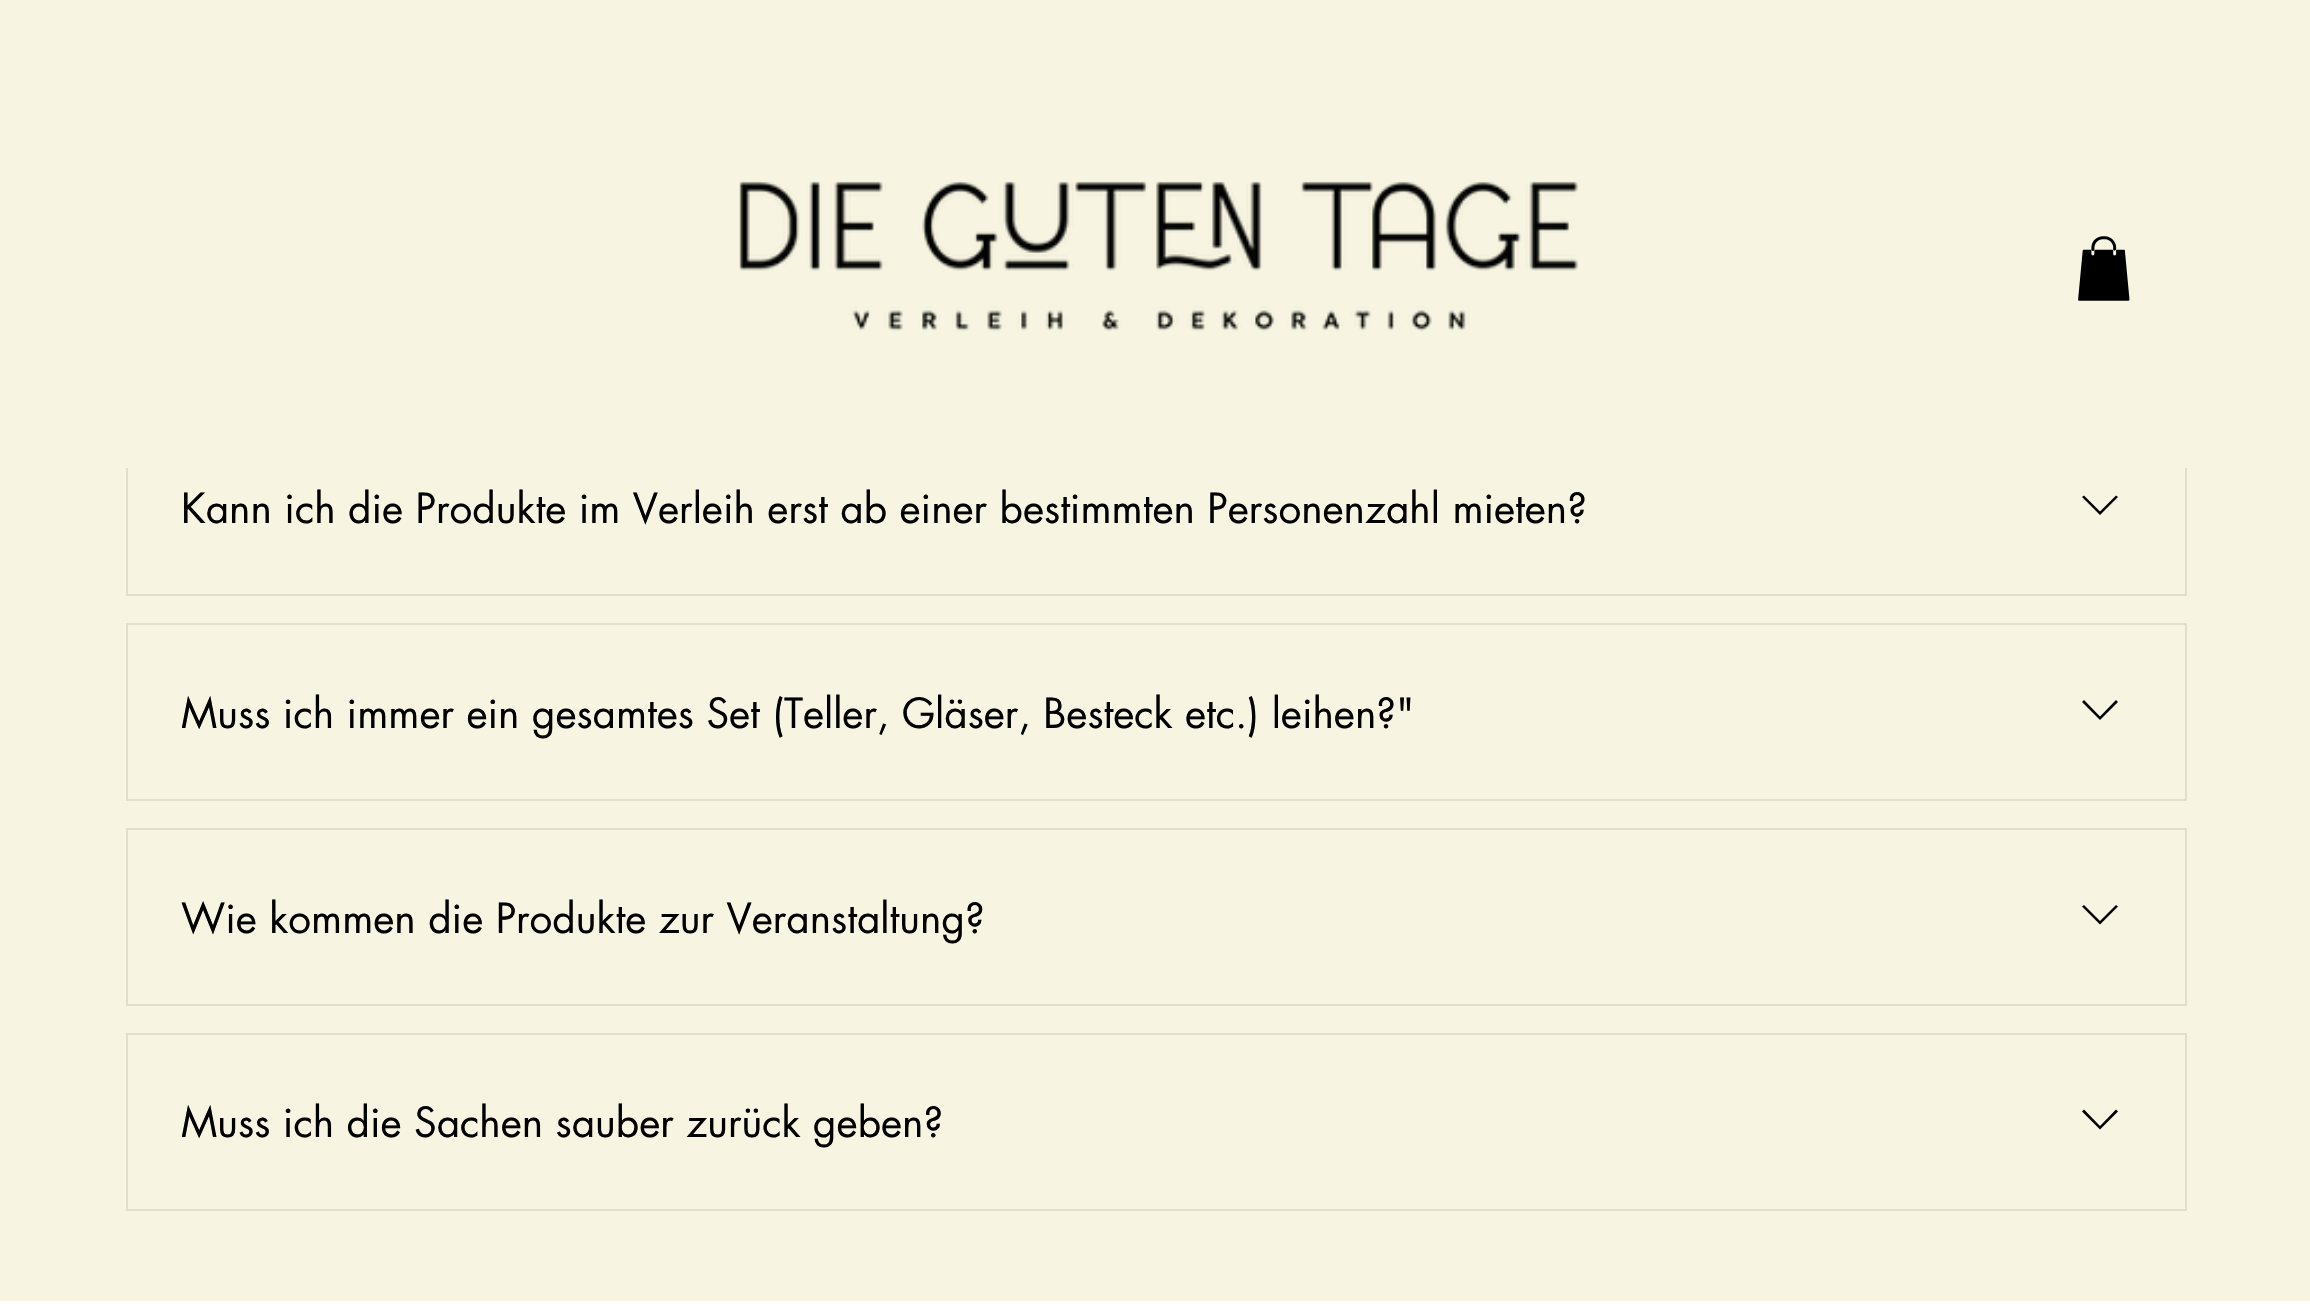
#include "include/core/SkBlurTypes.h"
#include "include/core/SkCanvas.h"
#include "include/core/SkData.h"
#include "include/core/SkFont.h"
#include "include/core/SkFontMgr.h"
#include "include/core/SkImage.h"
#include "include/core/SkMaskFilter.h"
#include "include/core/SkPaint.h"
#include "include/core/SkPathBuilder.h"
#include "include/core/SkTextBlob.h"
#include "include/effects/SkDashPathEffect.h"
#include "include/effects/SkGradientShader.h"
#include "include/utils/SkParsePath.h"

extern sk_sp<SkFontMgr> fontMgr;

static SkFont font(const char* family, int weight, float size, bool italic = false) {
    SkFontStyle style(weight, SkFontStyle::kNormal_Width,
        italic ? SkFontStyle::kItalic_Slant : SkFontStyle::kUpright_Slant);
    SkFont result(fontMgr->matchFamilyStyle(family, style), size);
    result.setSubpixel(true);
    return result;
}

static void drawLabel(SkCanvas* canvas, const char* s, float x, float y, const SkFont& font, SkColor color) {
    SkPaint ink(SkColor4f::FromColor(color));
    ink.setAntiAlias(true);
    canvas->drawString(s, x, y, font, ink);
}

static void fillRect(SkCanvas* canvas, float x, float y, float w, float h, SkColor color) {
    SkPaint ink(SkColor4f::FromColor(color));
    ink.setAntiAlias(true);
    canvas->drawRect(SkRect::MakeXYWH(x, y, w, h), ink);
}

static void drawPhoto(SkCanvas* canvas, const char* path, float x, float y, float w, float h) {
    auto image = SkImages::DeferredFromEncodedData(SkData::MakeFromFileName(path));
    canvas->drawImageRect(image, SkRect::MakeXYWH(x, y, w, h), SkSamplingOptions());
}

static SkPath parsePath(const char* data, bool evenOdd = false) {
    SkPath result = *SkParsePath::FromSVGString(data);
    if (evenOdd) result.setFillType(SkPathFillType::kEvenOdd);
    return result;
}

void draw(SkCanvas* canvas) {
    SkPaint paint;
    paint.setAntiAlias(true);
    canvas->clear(0xFFFFFFFF);
    fillRect(canvas, 0, 468, 2310, 833, 0xFFF7F5E1);
    paint.setStroke(true);
    paint.setStrokeWidth(2);
    paint.setColor(0xFFE3DECC);
    canvas->drawRect(SkRect::MakeXYWH(127, 420, 2059, 175), paint);
    fillRect(canvas, 0, 0, 2310, 468, 0xFFF7F5E1);
    drawPhoto(canvas, "assets/img1.png", 739, 181, 839, 151);
    drawPhoto(canvas, "assets/img2.png", 2078, 236, 52, 65);
    SkFont font1 = font("futura", 400, 40.5f);
    drawLabel(canvas, "Kann ich die Produkte im Verleih erst ab einer bestimmten Personenzahl mieten?", 181, 523, font1, 0xFF000000);
    paint.setStroke(false);
    paint.setColor(0xFF000000);
    canvas->drawPath(parsePath("M2116 495.5L2118 497L2100 515L2082 497L2084 495.5L2100 511.5Z", true), paint);
    paint.setStroke(true);
    paint.setColor(0xFFE3DECC);
    canvas->drawRect(SkRect::MakeXYWH(127, 624, 2059, 176), paint);
    drawLabel(canvas, "Muss ich immer ein gesamtes Set (Teller, Gläser, Besteck etc.) leihen?\"", 181, 728, font1, 0xFF000000);
    paint.setStroke(false);
    paint.setColor(0xFF000000);
    canvas->drawPath(parsePath("M2116 700L2118 702L2100 720L2082 702L2084 700L2100 716.5Z", true), paint);
    paint.setStroke(true);
    paint.setColor(0xFFE3DECC);
    canvas->drawRect(SkRect::MakeXYWH(127, 829, 2059, 176), paint);
    drawLabel(canvas, "Wie kommen die Produkte zur Veranstaltung?", 181, 933, font1, 0xFF000000);
    paint.setStroke(false);
    paint.setColor(0xFF000000);
    canvas->drawPath(parsePath("M2116 905L2118 906.5L2100 924.5L2082 906.5L2084 905L2100 921Z", true), paint);
    paint.setStroke(true);
    paint.setColor(0xFFE3DECC);
    canvas->drawRect(SkRect::MakeXYWH(127, 1034, 2059, 176), paint);
    drawLabel(canvas, "Muss ich die Sachen sauber zurück geben?", 181, 1137, font1, 0xFF000000);
    paint.setStroke(false);
    paint.setColor(0xFF000000);
    canvas->drawPath(parsePath("M2116 1109.5L2118 1111.5L2100 1129.5L2082 1111.5L2084 1109.5L2100 1126Z", true), paint);
}
